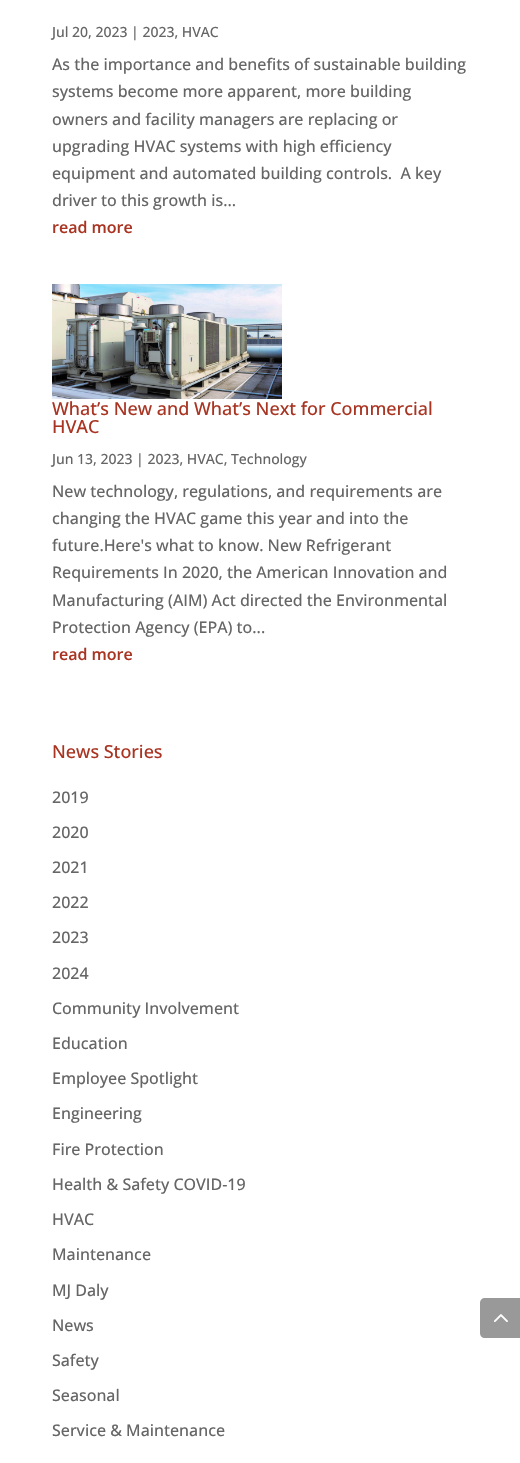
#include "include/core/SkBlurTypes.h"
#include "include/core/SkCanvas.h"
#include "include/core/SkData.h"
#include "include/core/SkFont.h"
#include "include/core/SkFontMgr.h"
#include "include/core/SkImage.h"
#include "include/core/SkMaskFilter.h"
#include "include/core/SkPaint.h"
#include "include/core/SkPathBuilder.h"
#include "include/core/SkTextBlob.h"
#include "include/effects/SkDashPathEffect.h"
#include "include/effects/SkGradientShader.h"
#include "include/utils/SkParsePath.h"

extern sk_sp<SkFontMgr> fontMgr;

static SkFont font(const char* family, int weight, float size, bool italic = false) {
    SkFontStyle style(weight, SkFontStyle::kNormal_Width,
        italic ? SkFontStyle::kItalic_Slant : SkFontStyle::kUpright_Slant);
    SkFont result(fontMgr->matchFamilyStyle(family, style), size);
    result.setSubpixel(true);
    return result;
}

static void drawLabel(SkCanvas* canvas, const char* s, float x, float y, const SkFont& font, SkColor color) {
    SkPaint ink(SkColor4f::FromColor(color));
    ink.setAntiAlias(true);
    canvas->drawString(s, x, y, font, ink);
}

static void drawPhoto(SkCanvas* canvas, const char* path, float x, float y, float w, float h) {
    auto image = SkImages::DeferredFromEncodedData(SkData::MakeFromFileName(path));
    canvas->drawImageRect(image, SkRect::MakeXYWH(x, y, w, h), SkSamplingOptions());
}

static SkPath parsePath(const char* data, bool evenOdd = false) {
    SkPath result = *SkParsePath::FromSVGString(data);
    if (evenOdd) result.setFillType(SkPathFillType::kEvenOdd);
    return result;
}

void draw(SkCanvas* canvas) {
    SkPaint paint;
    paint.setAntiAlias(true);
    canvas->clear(0xFFFFFFFF);
    SkFont font1 = font("Open Sans", 500, 14);
    drawLabel(canvas, "Jul 20, 2023 | 2023, HVAC", 52, 37, font1, 0xFF666666);
    SkFont font2 = font("Open Sans", 500, 16);
    drawLabel(canvas, "As the importance and benefits of sustainable building", 52, 70, font2, 0xFF666666);
    drawLabel(canvas, "systems become more apparent, more building", 52, 97, font2, 0xFF666666);
    drawLabel(canvas, "owners and facility managers are replacing or", 52, 125, font2, 0xFF666666);
    drawLabel(canvas, "upgrading HVAC systems with high efficiency", 52, 152, font2, 0xFF666666);
    drawLabel(canvas, "equipment and automated building controls.  A key", 52, 179, font2, 0xFF666666);
    drawLabel(canvas, "driver to this growth is...", 52, 206, font2, 0xFF666666);
    SkFont font3 = font("Open Sans", 600, 16);
    drawLabel(canvas, "read more", 52, 233, font3, 0xFFA93422);
    drawPhoto(canvas, "assets/img1.png", 52, 284, 230, 115);
    SkFont font4 = font("Open Sans", 500, 18);
    drawLabel(canvas, "What’s New and What’s Next for Commercial", 52, 415, font4, 0xFFA93422);
    drawLabel(canvas, "HVAC", 52, 433, font4, 0xFFA93422);
    drawLabel(canvas, "Jun 13, 2023 | 2023, HVAC, Technology", 52, 464, font1, 0xFF666666);
    drawLabel(canvas, "New technology, regulations, and requirements are", 52, 497, font2, 0xFF666666);
    drawLabel(canvas, "changing the HVAC game this year and into the", 52, 524, font2, 0xFF666666);
    drawLabel(canvas, "future.Here's what to know. New Refrigerant", 52, 551, font2, 0xFF666666);
    drawLabel(canvas, "Requirements In 2020, the American Innovation and", 52, 578, font2, 0xFF666666);
    drawLabel(canvas, "Manufacturing (AIM) Act directed the Environmental", 52, 606, font2, 0xFF666666);
    drawLabel(canvas, "Protection Agency (EPA) to...", 52, 633, font2, 0xFF666666);
    drawLabel(canvas, "read more", 52, 660, font3, 0xFFA93422);
    drawLabel(canvas, "News Stories", 52, 758, font4, 0xFFA93422);
    drawLabel(canvas, "2019", 52, 803, font2, 0xFF666666);
    drawLabel(canvas, "2020", 52, 838, font2, 0xFF666666);
    drawLabel(canvas, "2021", 52, 873, font2, 0xFF666666);
    drawLabel(canvas, "2022", 52, 908, font2, 0xFF666666);
    drawLabel(canvas, "2023", 52, 943, font2, 0xFF666666);
    drawLabel(canvas, "2024", 52, 979, font2, 0xFF666666);
    drawLabel(canvas, "Community Involvement", 52, 1014, font2, 0xFF666666);
    drawLabel(canvas, "Education", 52, 1049, font2, 0xFF666666);
    drawLabel(canvas, "Employee Spotlight", 52, 1084, font2, 0xFF666666);
    drawLabel(canvas, "Engineering", 52, 1119, font2, 0xFF666666);
    drawLabel(canvas, "Fire Protection", 52, 1155, font2, 0xFF666666);
    drawLabel(canvas, "Health & Safety COVID-19", 52, 1190, font2, 0xFF666666);
    drawLabel(canvas, "HVAC", 52, 1225, font2, 0xFF666666);
    drawLabel(canvas, "Maintenance", 52, 1260, font2, 0xFF666666);
    drawLabel(canvas, "MJ Daly", 52, 1296, font2, 0xFF666666);
    drawLabel(canvas, "News", 52, 1331, font2, 0xFF666666);
    drawLabel(canvas, "Safety", 52, 1366, font2, 0xFF666666);
    drawLabel(canvas, "Seasonal", 52, 1401, font2, 0xFF666666);
    drawLabel(canvas, "Service & Maintenance", 52, 1436, font2, 0xFF666666);
    paint.setColor(0xFF999999);
    canvas->drawPath(parsePath("M485 1298H520V1338H485C482 1338 480 1336 480 1333V1303C480 1300 482 1298 485 1298Z"), paint);
    drawPhoto(canvas, "assets/img2.png", 494, 1314, 14, 8);
}
